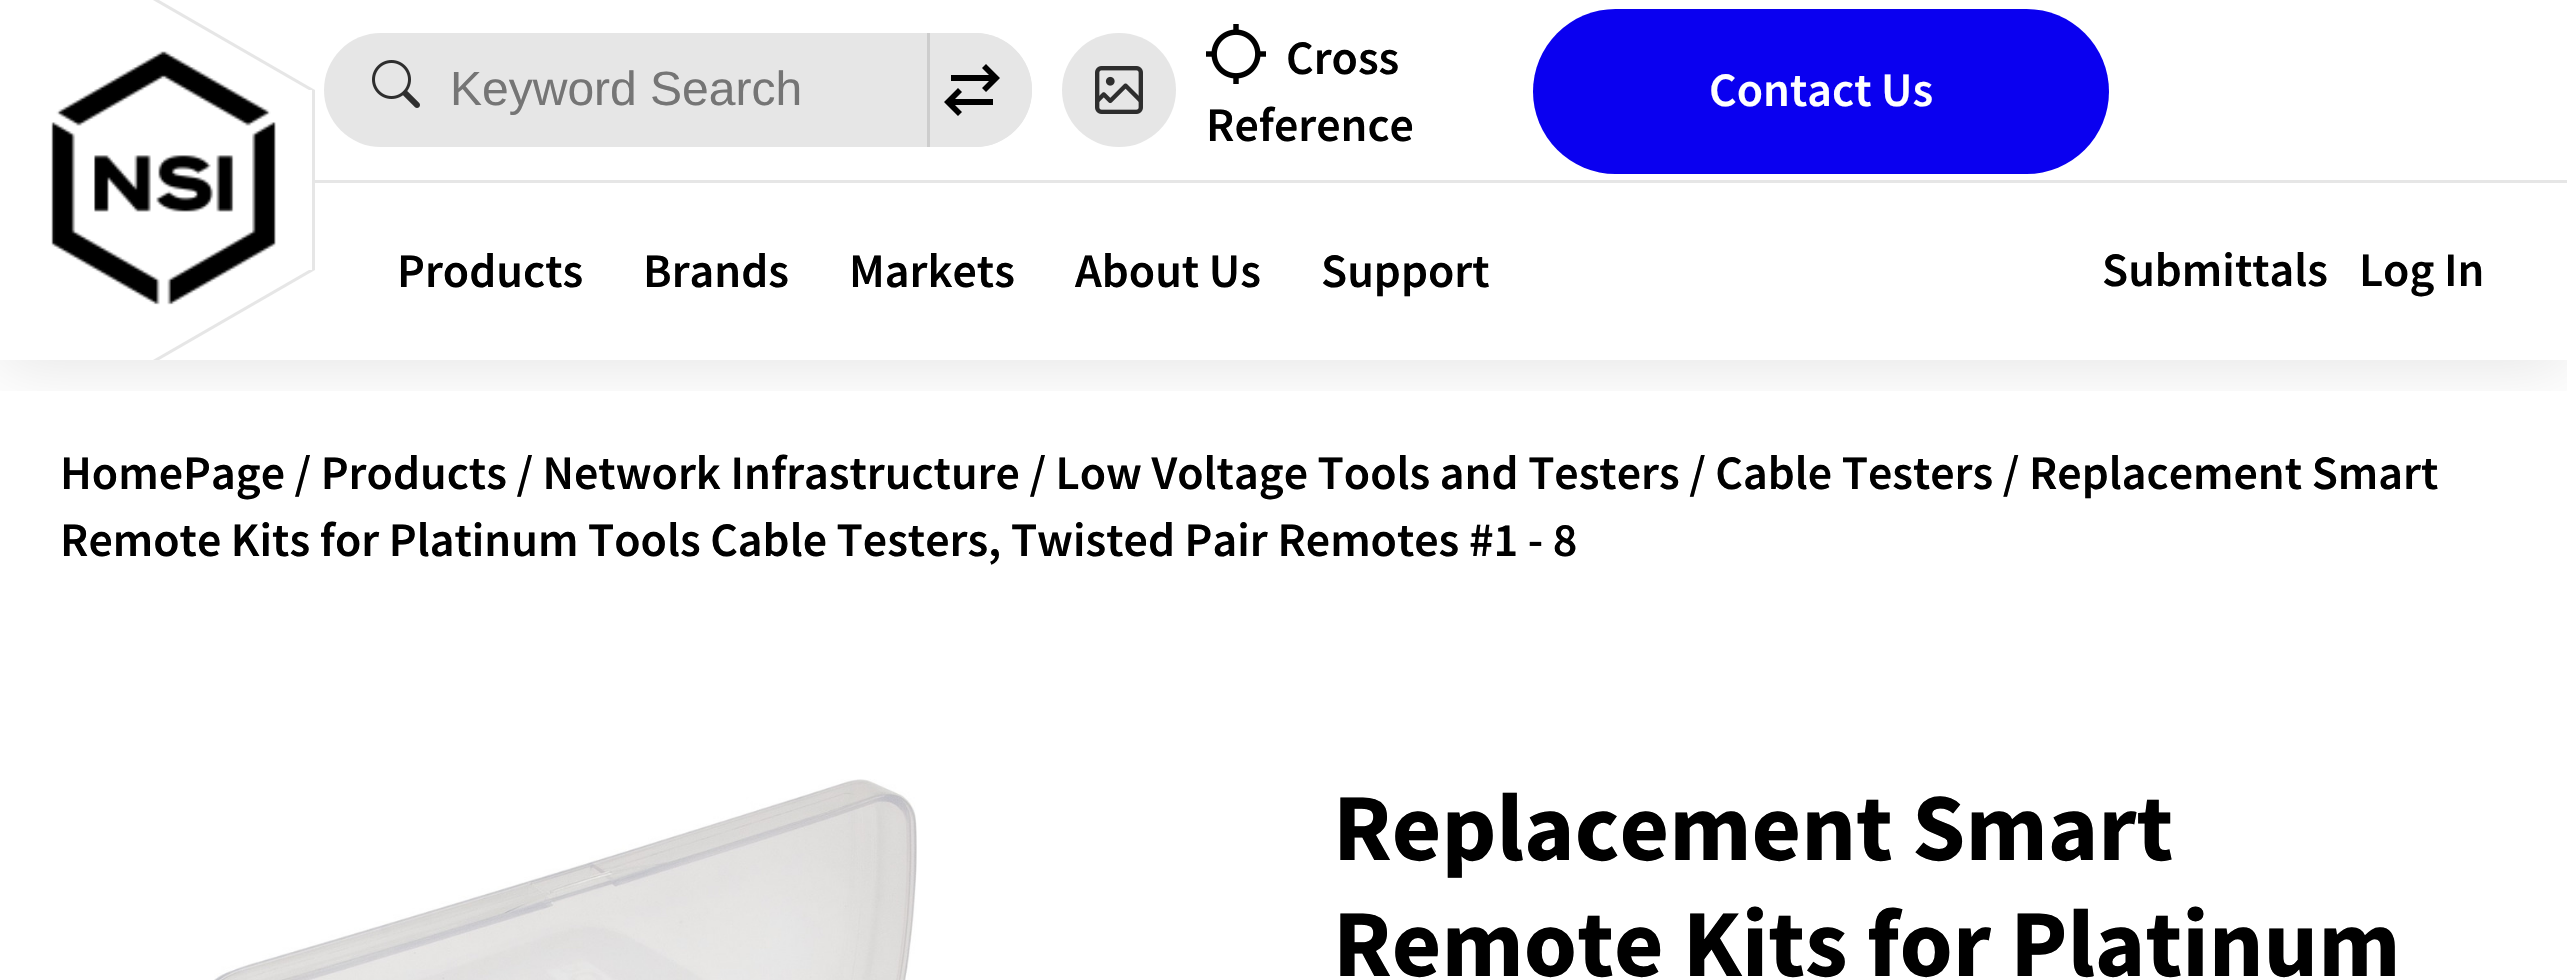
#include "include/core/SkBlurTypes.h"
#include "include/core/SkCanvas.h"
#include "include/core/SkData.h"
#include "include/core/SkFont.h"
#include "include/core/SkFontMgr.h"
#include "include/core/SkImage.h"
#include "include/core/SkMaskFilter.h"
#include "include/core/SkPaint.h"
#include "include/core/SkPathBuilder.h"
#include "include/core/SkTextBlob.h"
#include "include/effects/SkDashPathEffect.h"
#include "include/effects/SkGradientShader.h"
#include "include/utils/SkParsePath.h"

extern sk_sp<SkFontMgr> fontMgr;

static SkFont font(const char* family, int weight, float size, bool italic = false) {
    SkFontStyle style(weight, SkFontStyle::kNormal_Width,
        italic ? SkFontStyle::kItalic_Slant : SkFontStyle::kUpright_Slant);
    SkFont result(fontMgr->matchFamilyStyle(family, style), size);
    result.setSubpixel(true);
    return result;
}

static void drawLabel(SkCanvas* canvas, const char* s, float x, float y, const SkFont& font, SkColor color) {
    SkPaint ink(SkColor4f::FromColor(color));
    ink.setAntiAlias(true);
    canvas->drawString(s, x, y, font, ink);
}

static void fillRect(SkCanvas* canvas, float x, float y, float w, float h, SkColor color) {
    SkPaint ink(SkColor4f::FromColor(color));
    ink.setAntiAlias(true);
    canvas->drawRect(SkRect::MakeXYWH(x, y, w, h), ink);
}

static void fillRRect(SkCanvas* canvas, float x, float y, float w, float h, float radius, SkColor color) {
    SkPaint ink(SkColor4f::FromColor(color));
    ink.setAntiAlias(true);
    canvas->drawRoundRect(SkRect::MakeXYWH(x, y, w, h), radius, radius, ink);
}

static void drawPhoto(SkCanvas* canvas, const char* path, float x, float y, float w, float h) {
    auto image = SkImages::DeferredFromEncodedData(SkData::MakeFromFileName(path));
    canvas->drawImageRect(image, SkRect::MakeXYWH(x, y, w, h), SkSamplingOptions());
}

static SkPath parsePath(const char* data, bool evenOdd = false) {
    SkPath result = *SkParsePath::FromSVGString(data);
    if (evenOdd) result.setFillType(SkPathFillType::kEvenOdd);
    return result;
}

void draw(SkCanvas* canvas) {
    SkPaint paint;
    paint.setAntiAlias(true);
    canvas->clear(0xFFFFFFFF);
    canvas->save();
    canvas->clipRect(SkRect::MakeXYWH(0, 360, 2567, 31));
    paint.setColor(0x1A000000);
    paint.setMaskFilter(SkMaskFilter::MakeBlur(kNormal_SkBlurStyle, 30));
    canvas->drawRect(SkRect::MakeXYWH(0, 6, 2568, 360), paint);
    paint.setMaskFilter(nullptr);
    canvas->restore();
    drawPhoto(canvas, "assets/img1.png", 51, 51, 225, 254);
    paint.setColor(0xFFE6E6E6);
    canvas->drawPath(parsePath("M-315-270H-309L315 90H309Z"), paint);
    fillRect(canvas, 312, 90, 3, 180, 0xFFE6E6E6);
    canvas->save();
    canvas->clipRect(SkRect::MakeXYWH(15, 0, 309, 360));
    canvas->drawPath(parsePath("M309 270H315L-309 630H-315Z"), paint);
    canvas->restore();
    fillRRect(canvas, 324, 33, 708, 114, 57, 0xFFE6E6E6);
    drawPhoto(canvas, "assets/img2.png", 372, 60, 48, 48);
    SkFont font1 = font("Liberation Sans", 400, 48);
    drawLabel(canvas, "Keyword Search", 450, 105, font1, 0xFF757575);
    canvas->drawPath(parsePath("M927 33H975C1006.5 33 1032 58.5 1032 90C1032 121.5 1006.5 147 975 147H927Z"), paint);
    fillRect(canvas, 927, 33, 3, 114, 0xFFCDCDCD);
    paint.setColor(0xFF000000);
    canvas->drawPath(parsePath("M962 92L958 88L944 102L958 116L962 112L955 105H993V99H955ZM982 88L986 92L1000 78L986 64L982 68L989 75H951V81H989Z"), paint);
    paint.setColor(0xFFE6E6E6);
    canvas->drawCircle(1119, 90, 57, paint);
    drawPhoto(canvas, "assets/img3.png", 1095, 66, 48, 48);
    drawPhoto(canvas, "assets/img4.png", 1206, 24, 60, 60);
    SkFont font2 = font("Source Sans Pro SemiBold", 600, 48);
    drawLabel(canvas, "Cross", 1286, 74, font2, 0xFF000000);
    drawLabel(canvas, "Reference", 1206, 141, font2, 0xFF000000);
    drawLabel(canvas, "Products", 397, 287, font2, 0xFF000000);
    drawLabel(canvas, "Brands", 643, 287, font2, 0xFF000000);
    drawLabel(canvas, "Markets", 849, 287, font2, 0xFF000000);
    drawLabel(canvas, "About Us", 1075, 287, font2, 0xFF000000);
    drawLabel(canvas, "Support", 1321, 287, font2, 0xFF000000);
    fillRRect(canvas, 1533, 9, 576, 165, 82.5f, 0xFF0A00F0);
    drawLabel(canvas, "Contact Us", 1709, 106, font2, 0xFFFFFFFF);
    drawLabel(canvas, "Submittals", 2102, 286, font2, 0xFF000000);
    drawLabel(canvas, "Log In", 2359, 286, font2, 0xFF000000);
    fillRect(canvas, 315, 180, 2252, 3, 0xFFE6E6E6);
    drawLabel(canvas, "HomePage / Products / Network Infrastructure / Low Voltage Tools and Testers / Cable Testers / Replacement Smart", 60, 489, font2, 0xFF000000);
    drawLabel(canvas, "Remote Kits for Platinum Tools Cable Testers, Twisted Pair Remotes #1 - 8", 60, 556, font2, 0xFF000000);
    drawPhoto(canvas, "assets/img5.png", 214, 779, 703, 201);
    SkFont font3 = font("Source Sans Pro", 700, 96);
    drawLabel(canvas, "Replacement Smart", 1333, 860, font3, 0xFF000000);
    drawLabel(canvas, "Remote Kits for Platinum", 1333, 976, font3, 0xFF000000);
}
